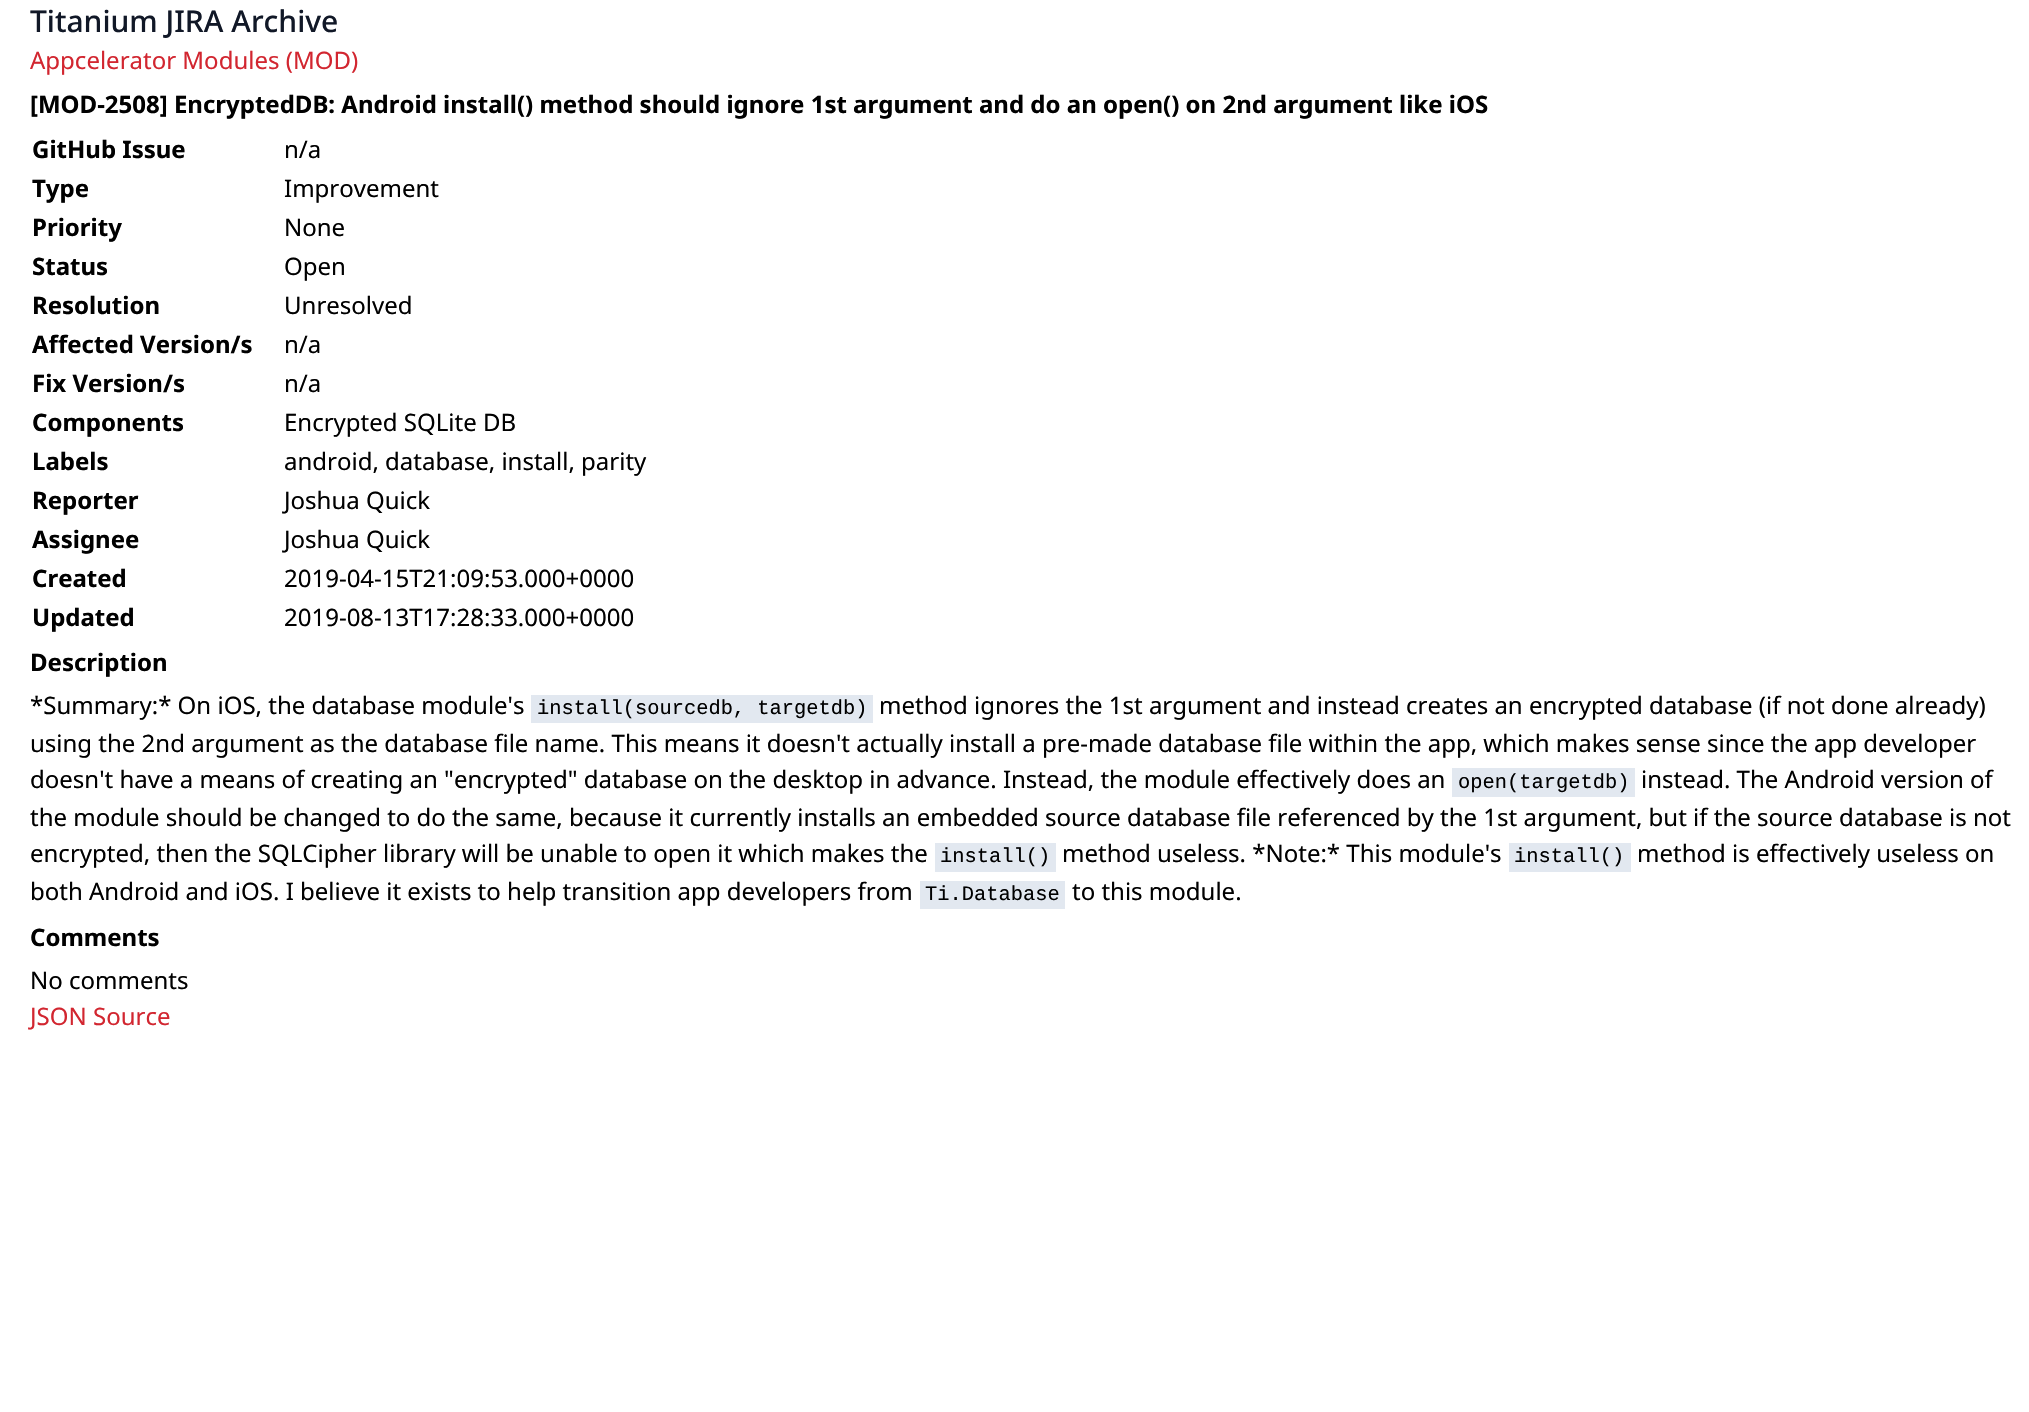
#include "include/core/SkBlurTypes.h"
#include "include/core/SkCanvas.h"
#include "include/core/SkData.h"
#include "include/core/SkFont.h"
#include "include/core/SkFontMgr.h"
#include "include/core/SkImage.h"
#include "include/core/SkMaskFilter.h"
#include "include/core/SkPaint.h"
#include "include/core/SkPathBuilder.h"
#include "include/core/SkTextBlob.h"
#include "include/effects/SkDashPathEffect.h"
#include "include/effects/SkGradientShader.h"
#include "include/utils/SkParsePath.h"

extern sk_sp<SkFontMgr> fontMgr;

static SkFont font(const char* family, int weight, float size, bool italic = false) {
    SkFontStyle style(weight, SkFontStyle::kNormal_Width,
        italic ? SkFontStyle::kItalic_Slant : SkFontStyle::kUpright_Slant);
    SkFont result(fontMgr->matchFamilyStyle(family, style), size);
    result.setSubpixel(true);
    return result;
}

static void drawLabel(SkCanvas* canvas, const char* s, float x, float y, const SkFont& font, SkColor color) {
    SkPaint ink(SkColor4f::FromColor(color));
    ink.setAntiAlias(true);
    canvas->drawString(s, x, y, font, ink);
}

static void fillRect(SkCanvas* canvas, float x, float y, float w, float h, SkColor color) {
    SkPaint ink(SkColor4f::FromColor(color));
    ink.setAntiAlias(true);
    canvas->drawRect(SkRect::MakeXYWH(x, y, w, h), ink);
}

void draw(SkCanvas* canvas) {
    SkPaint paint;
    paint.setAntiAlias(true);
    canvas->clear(0xFFFFFFFF);
    SkFont font1 = font("Noto Sans", 500, 30);
    drawLabel(canvas, "Titanium JIRA Archive", 30, 32, font1, 0xFF111827);
    SkFont font2 = font("Noto Sans", 400, 24);
    drawLabel(canvas, "Appcelerator Modules (MOD)", 30, 69, font2, 0xFFD22630);
    SkFont font3 = font("Noto Sans", 700, 24);
    drawLabel(canvas, "[MOD-2508] EncryptedDB: Android install() method should ignore 1st argument and do an open() on 2nd argument like iOS", 30, 113, font3, 0xFF000000);
    drawLabel(canvas, "GitHub Issue", 32, 158, font3, 0xFF000000);
    drawLabel(canvas, "n/a", 284, 158, font2, 0xFF000000);
    drawLabel(canvas, "Type", 32, 197, font3, 0xFF000000);
    drawLabel(canvas, "Improvement", 284, 197, font2, 0xFF000000);
    drawLabel(canvas, "Priority", 32, 236, font3, 0xFF000000);
    drawLabel(canvas, "None", 284, 236, font2, 0xFF000000);
    drawLabel(canvas, "Status", 32, 275, font3, 0xFF000000);
    drawLabel(canvas, "Open", 284, 275, font2, 0xFF000000);
    drawLabel(canvas, "Resolution", 32, 314, font3, 0xFF000000);
    drawLabel(canvas, "Unresolved", 284, 314, font2, 0xFF000000);
    drawLabel(canvas, "Affected Version/s", 32, 353, font3, 0xFF000000);
    drawLabel(canvas, "n/a", 284, 353, font2, 0xFF000000);
    drawLabel(canvas, "Fix Version/s", 32, 392, font3, 0xFF000000);
    drawLabel(canvas, "n/a", 284, 392, font2, 0xFF000000);
    drawLabel(canvas, "Components", 32, 431, font3, 0xFF000000);
    drawLabel(canvas, "Encrypted SQLite DB", 284, 431, font2, 0xFF000000);
    drawLabel(canvas, "Labels", 32, 470, font3, 0xFF000000);
    drawLabel(canvas, "android, database, install, parity", 284, 470, font2, 0xFF000000);
    drawLabel(canvas, "Reporter", 32, 509, font3, 0xFF000000);
    drawLabel(canvas, "Joshua Quick", 284, 509, font2, 0xFF000000);
    drawLabel(canvas, "Assignee", 32, 548, font3, 0xFF000000);
    drawLabel(canvas, "Joshua Quick", 284, 548, font2, 0xFF000000);
    drawLabel(canvas, "Created", 32, 587, font3, 0xFF000000);
    drawLabel(canvas, "2019-04-15T21:09:53.000+0000", 284, 587, font2, 0xFF000000);
    drawLabel(canvas, "Updated", 32, 626, font3, 0xFF000000);
    drawLabel(canvas, "2019-08-13T17:28:33.000+0000", 284, 626, font2, 0xFF000000);
    drawLabel(canvas, "Description", 30, 671, font3, 0xFF000000);
    drawLabel(canvas, "*Summary:* On iOS, the database module's", 30, 714, font2, 0xFF000000);
    fillRect(canvas, 531, 695, 342, 28, 0xFFE2E8F0);
    SkFont font4 = font("Liberation Mono", 400, 20.4f);
    drawLabel(canvas, "install(sourcedb, targetdb)", 537, 714, font4, 0xFF000000);
    drawLabel(canvas, "method ignores the 1st argument and instead creates an encrypted database (if not done already)", 879, 714, font2, 0xFF000000);
    drawLabel(canvas, "using the 2nd argument as the database file name. This means it doesn't actually install a pre-made database file within the app, which makes sense since the app developer", 30, 752, font2, 0xFF000000);
    drawLabel(canvas, "doesn't have a means of creating an \"encrypted\" database on the desktop in advance. Instead, the module effectively does an", 30, 788, font2, 0xFF000000);
    fillRect(canvas, 1452, 768, 183, 29, 0xFFE2E8F0);
    drawLabel(canvas, "open(targetdb)", 1458, 788, font4, 0xFF000000);
    drawLabel(canvas, "instead. The Android version of", 1641, 788, font2, 0xFF000000);
    drawLabel(canvas, "the module should be changed to do the same, because it currently installs an embedded source database file referenced by the 1st argument, but if the source database is not", 30, 826, font2, 0xFF000000);
    drawLabel(canvas, "encrypted, then the SQLCipher library will be unable to open it which makes the", 30, 862, font2, 0xFF000000);
    fillRect(canvas, 935, 843, 121, 29, 0xFFE2E8F0);
    drawLabel(canvas, "install()", 940, 862, font4, 0xFF000000);
    drawLabel(canvas, "method useless. *Note:* This module's", 1062, 862, font2, 0xFF000000);
    fillRect(canvas, 1509, 843, 122, 29, 0xFFE2E8F0);
    drawLabel(canvas, "install()", 1514, 862, font4, 0xFF000000);
    drawLabel(canvas, "method is effectively useless on", 1637, 862, font2, 0xFF000000);
    drawLabel(canvas, "both Android and iOS. I believe it exists to help transition app developers from", 30, 900, font2, 0xFF000000);
    fillRect(canvas, 920, 881, 145, 28, 0xFFE2E8F0);
    drawLabel(canvas, "Ti.Database", 925, 900, font4, 0xFF000000);
    drawLabel(canvas, "to this module.", 1072, 900, font2, 0xFF000000);
    drawLabel(canvas, "Comments", 30, 946, font3, 0xFF000000);
    drawLabel(canvas, "No comments", 30, 989, font2, 0xFF000000);
    drawLabel(canvas, "JSON Source", 30, 1025, font2, 0xFFD22630);
}
